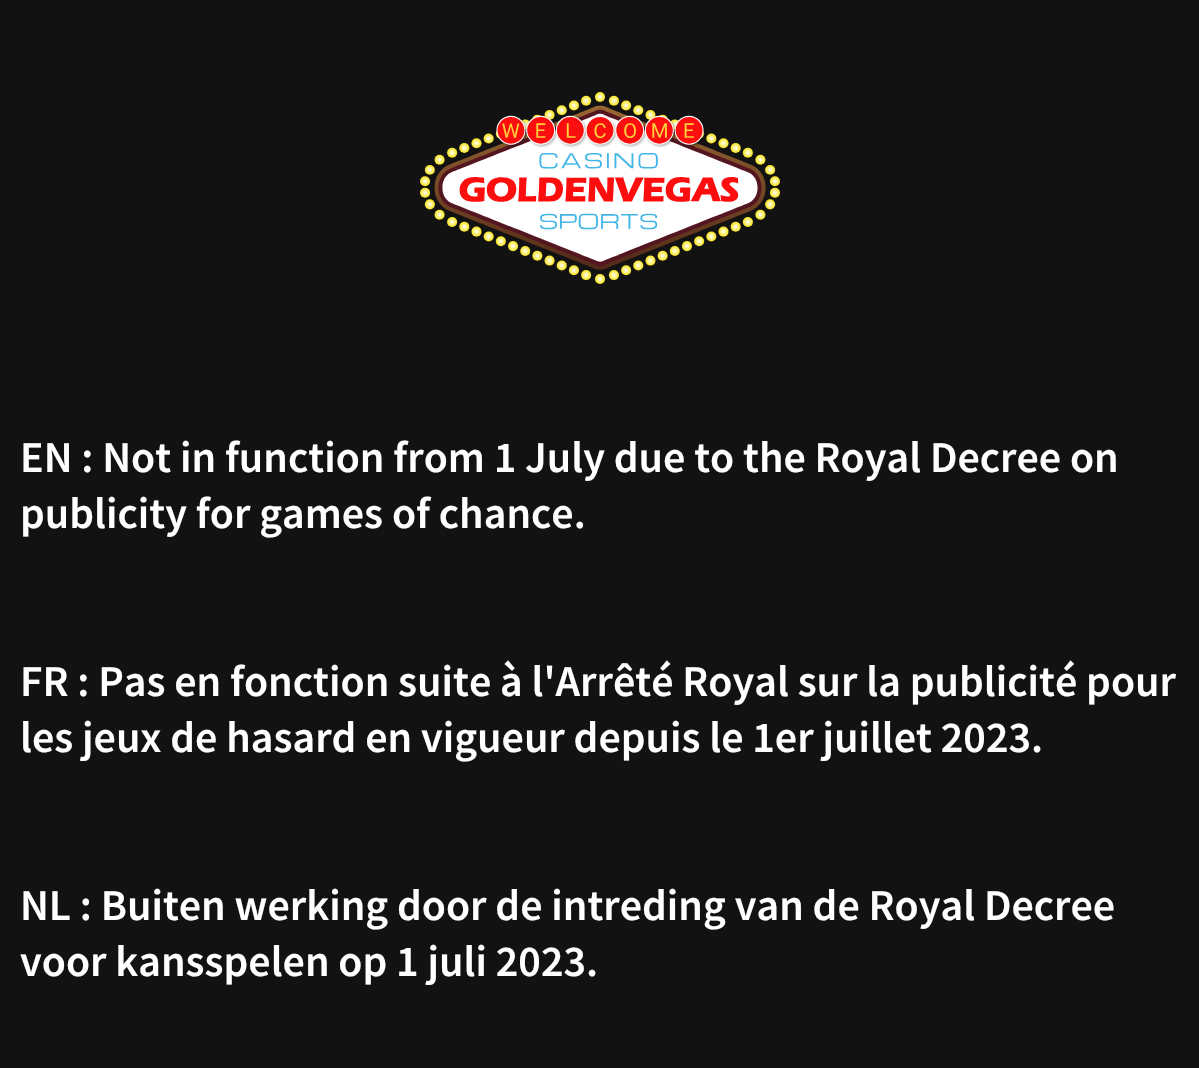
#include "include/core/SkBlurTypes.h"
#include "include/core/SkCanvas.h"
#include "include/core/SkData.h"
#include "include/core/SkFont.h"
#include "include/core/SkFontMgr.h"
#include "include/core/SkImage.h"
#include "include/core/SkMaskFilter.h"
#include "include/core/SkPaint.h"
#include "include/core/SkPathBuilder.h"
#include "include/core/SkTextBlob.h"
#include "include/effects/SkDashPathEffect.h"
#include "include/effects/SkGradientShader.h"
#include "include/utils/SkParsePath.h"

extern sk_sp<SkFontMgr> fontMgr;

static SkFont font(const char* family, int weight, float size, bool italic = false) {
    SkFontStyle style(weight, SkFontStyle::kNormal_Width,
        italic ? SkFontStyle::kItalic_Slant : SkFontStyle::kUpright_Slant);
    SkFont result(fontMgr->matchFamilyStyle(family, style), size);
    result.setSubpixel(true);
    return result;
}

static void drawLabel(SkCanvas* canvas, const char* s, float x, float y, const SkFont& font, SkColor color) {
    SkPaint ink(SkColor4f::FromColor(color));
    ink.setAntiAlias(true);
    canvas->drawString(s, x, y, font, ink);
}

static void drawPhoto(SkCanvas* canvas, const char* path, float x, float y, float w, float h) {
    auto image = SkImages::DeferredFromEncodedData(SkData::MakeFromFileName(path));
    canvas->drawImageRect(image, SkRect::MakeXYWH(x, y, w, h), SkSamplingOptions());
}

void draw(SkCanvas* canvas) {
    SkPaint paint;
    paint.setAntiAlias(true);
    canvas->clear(0xFF121212);
    drawPhoto(canvas, "assets/img1.png", 420, 92, 360, 192);
    SkFont font1 = font("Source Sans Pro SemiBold", 600, 44);
    drawLabel(canvas, "EN : Not in function from 1 July due to the Royal Decree on", 20, 472, font1, 0xFFFFFFFF);
    drawLabel(canvas, "publicity for games of chance.", 20, 528, font1, 0xFFFFFFFF);
    drawLabel(canvas, "FR : Pas en fonction suite à l'Arrêté Royal sur la publicité pour", 20, 696, font1, 0xFFFFFFFF);
    drawLabel(canvas, "les jeux de hasard en vigueur depuis le 1er juillet 2023.", 20, 752, font1, 0xFFFFFFFF);
    drawLabel(canvas, "NL : Buiten werking door de intreding van de Royal Decree", 20, 920, font1, 0xFFFFFFFF);
    drawLabel(canvas, "voor kansspelen op 1 juli 2023.", 20, 976, font1, 0xFFFFFFFF);
}
